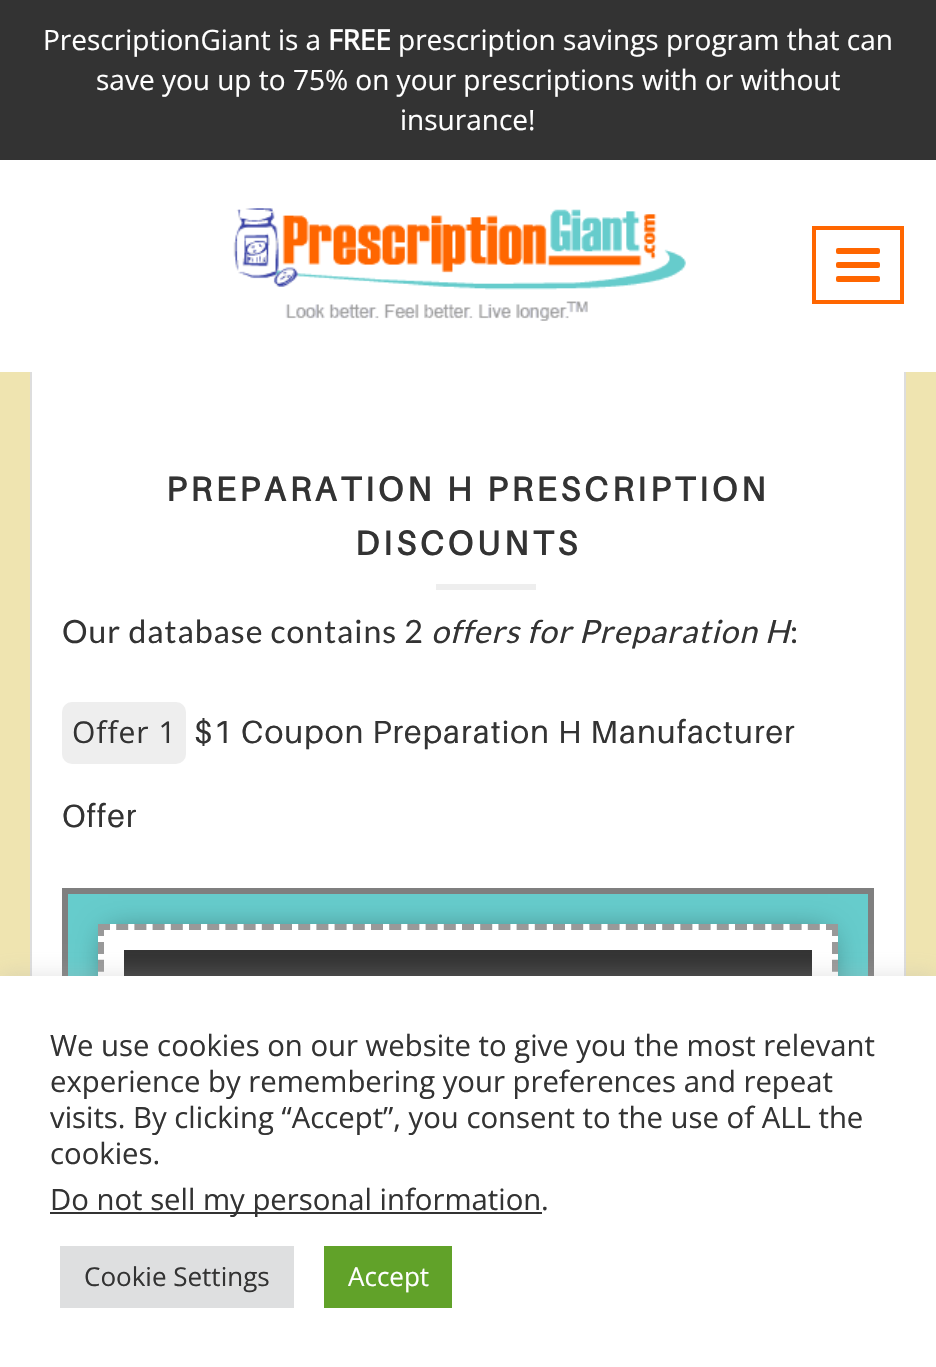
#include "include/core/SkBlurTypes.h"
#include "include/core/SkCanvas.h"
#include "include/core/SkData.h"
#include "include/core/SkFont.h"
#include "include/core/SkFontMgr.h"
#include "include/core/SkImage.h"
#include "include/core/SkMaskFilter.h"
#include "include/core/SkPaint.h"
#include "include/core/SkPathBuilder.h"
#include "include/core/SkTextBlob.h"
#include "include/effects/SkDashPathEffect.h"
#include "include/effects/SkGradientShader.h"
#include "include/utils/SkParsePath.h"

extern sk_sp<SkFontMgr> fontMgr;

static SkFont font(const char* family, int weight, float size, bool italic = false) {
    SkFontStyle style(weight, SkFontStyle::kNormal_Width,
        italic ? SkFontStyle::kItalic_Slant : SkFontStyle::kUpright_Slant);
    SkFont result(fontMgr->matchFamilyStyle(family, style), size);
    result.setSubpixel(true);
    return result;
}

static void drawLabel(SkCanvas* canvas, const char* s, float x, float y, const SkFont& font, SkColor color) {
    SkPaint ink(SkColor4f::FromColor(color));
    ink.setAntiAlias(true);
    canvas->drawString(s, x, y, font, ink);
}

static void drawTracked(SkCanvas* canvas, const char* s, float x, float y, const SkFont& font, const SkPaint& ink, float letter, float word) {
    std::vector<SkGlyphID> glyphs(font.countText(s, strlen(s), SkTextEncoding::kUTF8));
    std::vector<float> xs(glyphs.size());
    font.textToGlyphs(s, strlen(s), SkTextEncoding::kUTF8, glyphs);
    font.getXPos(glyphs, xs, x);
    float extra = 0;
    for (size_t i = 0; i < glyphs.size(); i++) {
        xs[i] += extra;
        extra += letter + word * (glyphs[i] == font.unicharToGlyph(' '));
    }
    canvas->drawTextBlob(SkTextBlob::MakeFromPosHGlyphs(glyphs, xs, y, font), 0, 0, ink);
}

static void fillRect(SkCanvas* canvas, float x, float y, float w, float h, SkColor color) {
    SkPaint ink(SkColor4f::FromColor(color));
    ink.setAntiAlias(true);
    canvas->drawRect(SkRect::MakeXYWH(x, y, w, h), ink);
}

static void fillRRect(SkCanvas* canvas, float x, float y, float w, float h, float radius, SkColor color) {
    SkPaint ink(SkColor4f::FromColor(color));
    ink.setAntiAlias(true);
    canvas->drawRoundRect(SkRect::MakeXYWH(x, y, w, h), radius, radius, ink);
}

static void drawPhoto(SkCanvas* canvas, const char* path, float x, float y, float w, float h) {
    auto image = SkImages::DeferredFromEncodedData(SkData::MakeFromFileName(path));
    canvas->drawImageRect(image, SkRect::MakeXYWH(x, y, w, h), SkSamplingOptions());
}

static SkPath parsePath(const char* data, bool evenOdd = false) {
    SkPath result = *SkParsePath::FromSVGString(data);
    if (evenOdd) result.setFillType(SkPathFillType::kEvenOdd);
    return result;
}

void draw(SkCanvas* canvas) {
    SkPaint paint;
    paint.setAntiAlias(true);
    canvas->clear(0xFFFFFFFF);
    fillRect(canvas, 0, 0, 936, 160, 0xFF333333);
    SkFont font1 = font("Open Sans", 400, 28);
    drawLabel(canvas, "PrescriptionGiant is a", 43, 50, font1, 0xFFFFFFFF);
    SkFont font2 = font("Open Sans", 700, 28);
    drawLabel(canvas, "FREE", 328, 50, font2, 0xFFFFFFFF);
    drawLabel(canvas, "prescription savings program that can", 398, 50, font1, 0xFFFFFFFF);
    drawLabel(canvas, "save you up to 75% on your prescriptions with or without", 96, 90, font1, 0xFFFFFFFF);
    drawLabel(canvas, "insurance!", 400, 130, font1, 0xFFFFFFFF);
    drawPhoto(canvas, "assets/img1.png", 233, 208, 453, 113);
    paint.setStroke(true);
    paint.setStrokeWidth(4);
    paint.setColor(0xFFFF6600);
    canvas->drawRect(SkRect::MakeXYWH(814, 228, 88, 74), paint);
    fillRRect(canvas, 836, 248, 44, 6, 2, 0xFFFF6600);
    fillRRect(canvas, 836, 262, 44, 6, 2, 0xFFFF6600);
    fillRRect(canvas, 836, 276, 44, 6, 2, 0xFFFF6600);
    fillRect(canvas, 0, 372, 936, 604, 0xFFEFE4B0);
    fillRect(canvas, 32, 372, 872, 604, 0xFFFFFFFF);
    fillRect(canvas, 904, 372, 2, 604, 0xFFDDDDDD);
    fillRect(canvas, 30, 372, 2, 604, 0xFFDDDDDD);
    SkFont font3 = font("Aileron", 700, 34);
    paint.setStroke(false);
    paint.setColor(0xFF333333);
    drawTracked(canvas, "PREPARATION H PRESCRIPTION", 166, 501, font3, paint, 4, 0);
    drawTracked(canvas, "DISCOUNTS", 355, 555, font3, paint, 4, 0);
    fillRect(canvas, 436, 584, 100, 6, 0xFFEEEEEE);
    SkFont font4 = font("Lato", 400, 32);
    drawTracked(canvas, "Our database contains 2", 62, 643, font4, paint, 1, 0);
    SkFont font5 = font("Lato", 400, 32, true);
    drawTracked(canvas, "offers for Preparation H", 431, 643, font5, paint, 1, 0);
    drawTracked(canvas, ":", 790, 643, font4, paint, 1, 0);
    fillRRect(canvas, 62, 702, 124, 62, 10, 0xFFEEEEEE);
    SkFont font6 = font("Open Sans", 400, 30);
    drawTracked(canvas, "Offer 1", 72, 743, font6, paint, 1, 0);
    SkFont font7 = font("Aileron", 400, 32);
    drawTracked(canvas, "$1 Coupon Preparation H Manufacturer", 194, 743, font7, paint, 1, 0);
    drawTracked(canvas, "Offer", 62, 827, font7, paint, 1, 0);
    fillRect(canvas, 68, 894, 800, 82, 0xFF66CCCC);
    paint.setStroke(true);
    paint.setStrokeWidth(6);
    paint.setColor(0xFF7F7F7F);
    canvas->drawRect(SkRect::MakeXYWH(65, 891, 806, 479), paint);
    paint.setStroke(false);
    paint.setColor(0x80000000);
    paint.setMaskFilter(SkMaskFilter::MakeBlur(kNormal_SkBlurStyle, 15));
    canvas->drawRect(SkRect::MakeXYWH(108, 934, 720, 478), paint);
    paint.setMaskFilter(nullptr);
    fillRect(canvas, 98, 924, 740, 52, 0xFFFFFFFF);
    paint.setStroke(true);
    paint.setColor(0xFF999999);
    paint.setPathEffect(SkDashPathEffect::Make({{12, 6.2f}}, 0));
    canvas->drawPath(parsePath("M98 927H838"), paint);
    paint.setPathEffect(nullptr);
    paint.setPathEffect(SkDashPathEffect::Make({{12, 5.88f}}, 0));
    canvas->drawPath(parsePath("M835 924V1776"), paint);
    paint.setPathEffect(nullptr);
    paint.setPathEffect(SkDashPathEffect::Make({{12, 5.88f}}, 0));
    canvas->drawPath(parsePath("M101 924V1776"), paint);
    paint.setPathEffect(nullptr);
    fillRect(canvas, 124, 950, 688, 26, 0xFF333333);
    paint.setStroke(false);
    paint.setColor(0x4DACABAB);
    paint.setMaskFilter(SkMaskFilter::MakeBlur(kNormal_SkBlurStyle, 10));
    canvas->drawRect(SkRect::MakeXYWH(0, 974, 936, 392), paint);
    paint.setMaskFilter(nullptr);
    fillRect(canvas, 0, 976, 936, 391, 0xFFFFFFFF);
    SkFont font8 = font("Open Sans", 400, 29.3f);
    drawLabel(canvas, "We use cookies on our website to give you the most relevant", 50, 1056, font8, 0xFF333333);
    drawLabel(canvas, "experience by remembering your preferences and repeat", 50, 1092, font8, 0xFF333333);
    drawLabel(canvas, "visits. By clicking “Accept”, you consent to the use of ALL the", 50, 1128, font8, 0xFF333333);
    drawLabel(canvas, "cookies.", 50, 1164, font8, 0xFF333333);
    fillRect(canvas, 50, 1212, 492, 2, 0xFF333333);
    drawLabel(canvas, "Do not sell my personal information", 50, 1210, font8, 0xFF333333);
    drawLabel(canvas, ".", 541, 1210, font8, 0xFF333333);
    fillRect(canvas, 60, 1246, 234, 62, 0xFFDEDFE0);
    SkFont font9 = font("Open Sans", 400, 26);
    drawLabel(canvas, "Cookie Settings", 84, 1286, font9, 0xFF333333);
    fillRect(canvas, 324, 1246, 128, 62, 0xFF61A229);
    drawLabel(canvas, "Accept", 348, 1286, font9, 0xFFFFFFFF);
}
